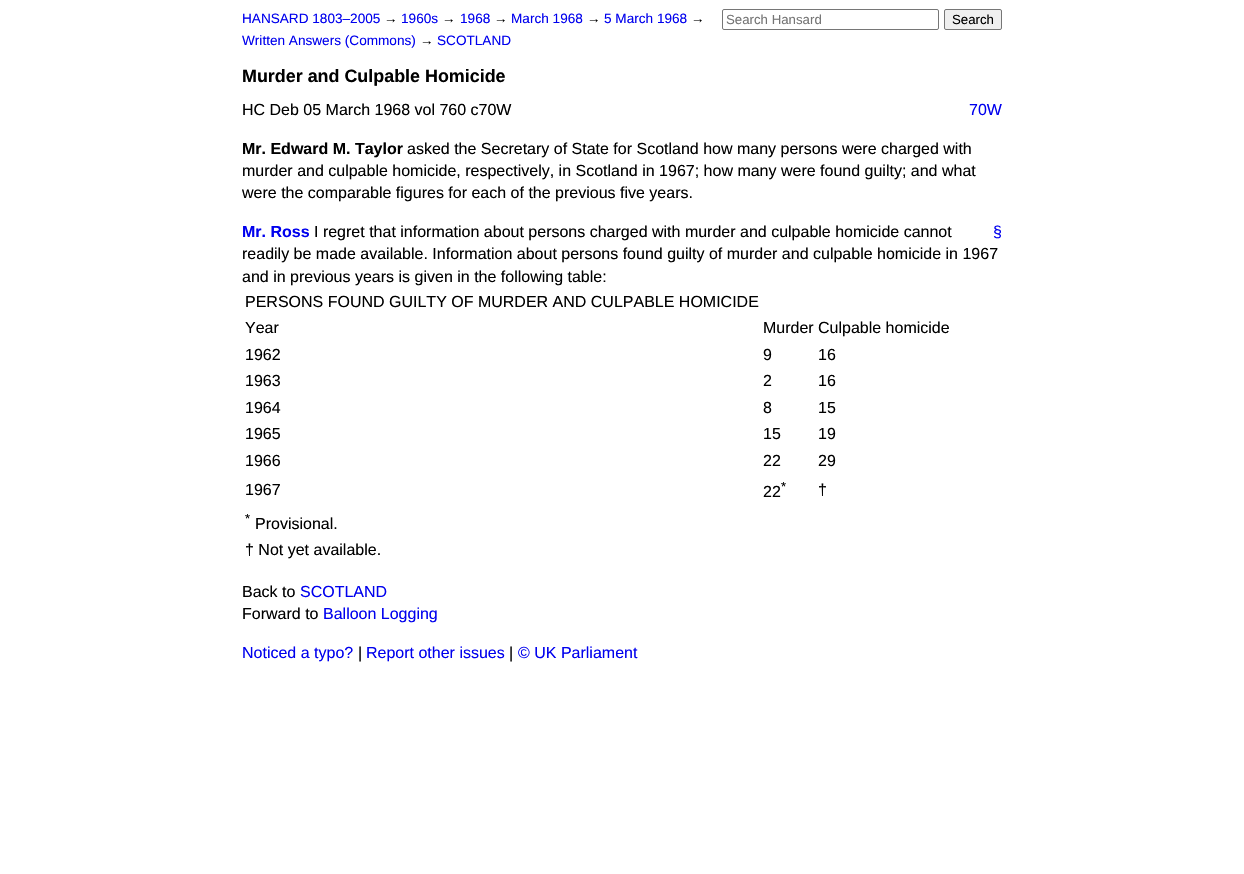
#include "include/core/SkBlurTypes.h"
#include "include/core/SkCanvas.h"
#include "include/core/SkData.h"
#include "include/core/SkFont.h"
#include "include/core/SkFontMgr.h"
#include "include/core/SkImage.h"
#include "include/core/SkMaskFilter.h"
#include "include/core/SkPaint.h"
#include "include/core/SkPathBuilder.h"
#include "include/core/SkTextBlob.h"
#include "include/effects/SkDashPathEffect.h"
#include "include/effects/SkGradientShader.h"
#include "include/utils/SkParsePath.h"

extern sk_sp<SkFontMgr> fontMgr;

static SkFont font(const char* family, int weight, float size, bool italic = false) {
    SkFontStyle style(weight, SkFontStyle::kNormal_Width,
        italic ? SkFontStyle::kItalic_Slant : SkFontStyle::kUpright_Slant);
    SkFont result(fontMgr->matchFamilyStyle(family, style), size);
    result.setSubpixel(true);
    return result;
}

static void drawLabel(SkCanvas* canvas, const char* s, float x, float y, const SkFont& font, SkColor color) {
    SkPaint ink(SkColor4f::FromColor(color));
    ink.setAntiAlias(true);
    canvas->drawString(s, x, y, font, ink);
}

void draw(SkCanvas* canvas) {
    SkPaint paint;
    paint.setAntiAlias(true);
    canvas->clear(0xFFFFFFFF);
    SkFont font1 = font("Liberation Sans", 400, 13.6f);
    drawLabel(canvas, "HANSARD 1803–2005", 242, 23, font1, 0xFF0000EE);
    drawLabel(canvas, "→", 384, 23, font1, 0xFF000000);
    drawLabel(canvas, "1960s", 401, 23, font1, 0xFF0000EE);
    drawLabel(canvas, "→", 442, 23, font1, 0xFF000000);
    drawLabel(canvas, "1968", 460, 23, font1, 0xFF0000EE);
    drawLabel(canvas, "→", 494, 23, font1, 0xFF000000);
    drawLabel(canvas, "March 1968", 511, 23, font1, 0xFF0000EE);
    drawLabel(canvas, "→", 587, 23, font1, 0xFF000000);
    drawLabel(canvas, "5 March 1968", 604, 23, font1, 0xFF0000EE);
    drawLabel(canvas, "→", 691, 23, font1, 0xFF000000);
    drawLabel(canvas, "Written Answers (Commons)", 242, 45, font1, 0xFF0000EE);
    drawLabel(canvas, "→", 420, 45, font1, 0xFF000000);
    drawLabel(canvas, "SCOTLAND", 437, 45, font1, 0xFF0000EE);
    paint.setStroke(true);
    paint.setStrokeWidth(1);
    paint.setColor(0xFF767676);
    canvas->drawRoundRect(SkRect::MakeXYWH(722.5f, 9.5f, 216, 20), 1.5f, 1.5f, paint);
    SkFont font2 = font("Liberation Sans", 400, 13.25f);
    drawLabel(canvas, "Search Hansard", 726, 24, font2, 0xFF757575);
    paint.setStroke(false);
    paint.setColor(0xFFEFEFEF);
    canvas->drawRoundRect(SkRect::MakeXYWH(944.5f, 9.5f, 57, 20), 1.5f, 1.5f, paint);
    paint.setStroke(true);
    paint.setColor(0xFF767676);
    canvas->drawRoundRect(SkRect::MakeXYWH(944.5f, 9.5f, 57, 20), 1.5f, 1.5f, paint);
    drawLabel(canvas, "Search", 952, 24, font2, 0xFF000000);
    SkFont font3 = font("Liberation Sans", 700, 17.9f);
    drawLabel(canvas, "Murder and Culpable Homicide", 242, 82, font3, 0xFF000000);
    SkFont font4 = font("Liberation Sans", 400, 16);
    drawLabel(canvas, "HC Deb 05 March 1968 vol 760 c70W", 242, 115, font4, 0xFF000000);
    drawLabel(canvas, "70W", 969, 115, font4, 0xFF0000EE);
    SkFont font5 = font("Liberation Sans", 700, 16);
    drawLabel(canvas, "Mr. Edward M. Taylor", 242, 154, font5, 0xFF000000);
    drawLabel(canvas, "asked the Secretary of State for Scotland how many persons were charged with", 407, 154, font4, 0xFF000000);
    drawLabel(canvas, "murder and culpable homicide, respectively, in Scotland in 1967; how many were found guilty; and what", 242, 176, font4, 0xFF000000);
    drawLabel(canvas, "were the comparable figures for each of the previous five years.", 242, 198, font4, 0xFF000000);
    drawLabel(canvas, "Mr. Ross", 242, 237, font5, 0xFF0000EE);
    drawLabel(canvas, "I regret that information about persons charged with murder and culpable homicide cannot", 314, 237, font4, 0xFF000000);
    drawLabel(canvas, "§", 993, 237, font4, 0xFF0000EE);
    drawLabel(canvas, "readily be made available. Information about persons found guilty of murder and culpable homicide in 1967", 242, 259, font4, 0xFF000000);
    drawLabel(canvas, "and in previous years is given in the following table:", 242, 282, font4, 0xFF000000);
    drawLabel(canvas, "PERSONS FOUND GUILTY OF MURDER AND CULPABLE HOMICIDE", 245, 307, font4, 0xFF000000);
    drawLabel(canvas, "Year", 245, 333, font4, 0xFF000000);
    drawLabel(canvas, "Murder", 763, 333, font4, 0xFF000000);
    drawLabel(canvas, "Culpable homicide", 818, 333, font4, 0xFF000000);
    drawLabel(canvas, "1962", 245, 360, font4, 0xFF000000);
    drawLabel(canvas, "9", 763, 360, font4, 0xFF000000);
    drawLabel(canvas, "16", 818, 360, font4, 0xFF000000);
    drawLabel(canvas, "1963", 245, 386, font4, 0xFF000000);
    drawLabel(canvas, "2", 763, 386, font4, 0xFF000000);
    drawLabel(canvas, "16", 818, 386, font4, 0xFF000000);
    drawLabel(canvas, "1964", 245, 413, font4, 0xFF000000);
    drawLabel(canvas, "8", 763, 413, font4, 0xFF000000);
    drawLabel(canvas, "15", 818, 413, font4, 0xFF000000);
    drawLabel(canvas, "1965", 245, 439, font4, 0xFF000000);
    drawLabel(canvas, "15", 763, 439, font4, 0xFF000000);
    drawLabel(canvas, "19", 818, 439, font4, 0xFF000000);
    drawLabel(canvas, "1966", 245, 466, font4, 0xFF000000);
    drawLabel(canvas, "22", 763, 466, font4, 0xFF000000);
    drawLabel(canvas, "29", 818, 466, font4, 0xFF000000);
    drawLabel(canvas, "1967", 245, 495, font4, 0xFF000000);
    drawLabel(canvas, "*", 781, 491, font2, 0xFF000000);
    drawLabel(canvas, "22", 763, 497, font4, 0xFF000000);
    drawLabel(canvas, "†", 818, 495, font4, 0xFF000000);
    drawLabel(canvas, "*", 245, 523, font2, 0xFF000000);
    drawLabel(canvas, "Provisional.", 255, 529, font4, 0xFF000000);
    drawLabel(canvas, "† Not yet available.", 245, 555, font4, 0xFF000000);
    drawLabel(canvas, "Back to", 242, 597, font4, 0xFF000000);
    drawLabel(canvas, "SCOTLAND", 300, 597, font4, 0xFF0000EE);
    drawLabel(canvas, "Forward to", 242, 619, font4, 0xFF000000);
    drawLabel(canvas, "Balloon Logging", 323, 619, font4, 0xFF0000EE);
    drawLabel(canvas, "Noticed a typo?", 242, 658, font4, 0xFF0000EE);
    drawLabel(canvas, "|", 358, 658, font4, 0xFF000000);
    drawLabel(canvas, "Report other issues", 366, 658, font4, 0xFF0000EE);
    drawLabel(canvas, "|", 509, 658, font4, 0xFF000000);
    drawLabel(canvas, "© UK Parliament", 518, 658, font4, 0xFF0000EE);
}
